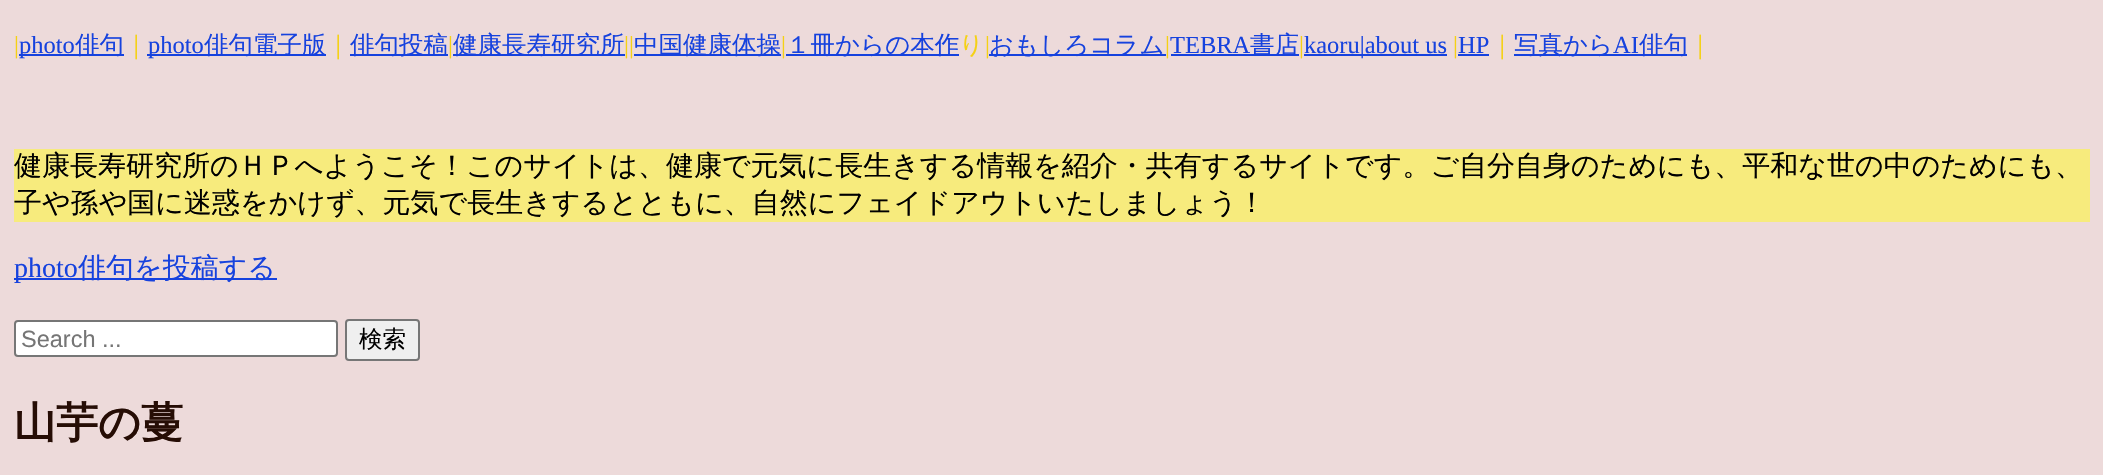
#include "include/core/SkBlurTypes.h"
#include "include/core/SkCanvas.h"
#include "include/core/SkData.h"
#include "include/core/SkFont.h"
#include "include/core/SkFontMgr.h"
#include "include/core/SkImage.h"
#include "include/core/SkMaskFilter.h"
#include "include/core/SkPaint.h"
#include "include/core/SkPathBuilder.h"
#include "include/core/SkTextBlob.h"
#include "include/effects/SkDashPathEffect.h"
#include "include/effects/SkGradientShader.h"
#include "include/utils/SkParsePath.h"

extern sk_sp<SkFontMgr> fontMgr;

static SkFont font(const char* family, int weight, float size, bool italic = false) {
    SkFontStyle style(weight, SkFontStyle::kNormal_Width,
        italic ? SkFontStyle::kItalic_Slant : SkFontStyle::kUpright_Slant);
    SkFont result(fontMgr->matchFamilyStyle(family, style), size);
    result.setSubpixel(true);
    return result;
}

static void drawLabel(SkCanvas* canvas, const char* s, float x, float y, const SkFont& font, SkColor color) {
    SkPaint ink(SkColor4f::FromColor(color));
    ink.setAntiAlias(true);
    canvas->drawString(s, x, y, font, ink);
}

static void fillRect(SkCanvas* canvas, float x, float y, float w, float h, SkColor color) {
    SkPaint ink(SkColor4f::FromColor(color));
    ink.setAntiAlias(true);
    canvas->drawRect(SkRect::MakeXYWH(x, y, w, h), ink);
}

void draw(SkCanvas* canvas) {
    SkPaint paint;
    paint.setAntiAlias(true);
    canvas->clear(0xFFEDDADA);
    SkFont font1 = font("Liberation Serif", 400, 24.5f);
    drawLabel(canvas, "|", 14, 53, font1, 0xFFF5D114);
    fillRect(canvas, 19, 54, 105, 2, 0xFF1642DE);
    drawLabel(canvas, "photo", 19, 53, font1, 0xFF1642DE);
    SkFont font2 = font("WenQuanYi Zen Hei", 500, 24.5f);
    drawLabel(canvas, "俳句", 75, 53, font2, 0xFF1642DE);
    drawLabel(canvas, "｜", 124, 53, font2, 0xFFF5D114);
    fillRect(canvas, 147, 54, 179, 2, 0xFF1642DE);
    drawLabel(canvas, "photo", 148, 53, font1, 0xFF1642DE);
    drawLabel(canvas, "俳句電子版", 204, 53, font2, 0xFF1642DE);
    drawLabel(canvas, "｜", 326, 53, font2, 0xFFF5D114);
    fillRect(canvas, 350, 54, 98, 2, 0xFF1642DE);
    drawLabel(canvas, "俳句投稿", 350, 53, font2, 0xFF1642DE);
    drawLabel(canvas, "|", 448, 53, font1, 0xFFF5D114);
    fillRect(canvas, 453, 54, 172, 2, 0xFF1642DE);
    drawLabel(canvas, "健康長寿研究所", 453, 53, font2, 0xFF1642DE);
    drawLabel(canvas, "||", 624, 53, font1, 0xFFF5D114);
    fillRect(canvas, 634, 54, 147, 2, 0xFF1642DE);
    drawLabel(canvas, "中国健康体操", 634, 53, font2, 0xFF1642DE);
    drawLabel(canvas, "|", 781, 53, font1, 0xFFF5D114);
    fillRect(canvas, 786, 54, 173, 2, 0xFF1642DE);
    drawLabel(canvas, "１冊からの本作", 786, 53, font2, 0xFF1642DE);
    drawLabel(canvas, "り", 959, 53, font2, 0xFFF5D114);
    drawLabel(canvas, "|", 985, 53, font1, 0xFFF5D114);
    fillRect(canvas, 989, 54, 177, 2, 0xFF1642DE);
    drawLabel(canvas, "おもしろコラム", 989, 53, font2, 0xFF1642DE);
    drawLabel(canvas, "|", 1165, 53, font1, 0xFFF5D114);
    fillRect(canvas, 1171, 54, 128, 2, 0xFF1642DE);
    drawLabel(canvas, "TEBRA", 1170, 53, font1, 0xFF1642DE);
    drawLabel(canvas, "書店", 1250, 53, font2, 0xFF1642DE);
    drawLabel(canvas, "|", 1299, 53, font1, 0xFFF5D114);
    fillRect(canvas, 1304, 54, 143, 2, 0xFF1642DE);
    drawLabel(canvas, "kaoru|about us", 1304, 53, font1, 0xFF1642DE);
    drawLabel(canvas, "|", 1453, 53, font1, 0xFFF5D114);
    fillRect(canvas, 1458, 54, 31, 2, 0xFF1642DE);
    drawLabel(canvas, "HP", 1458, 53, font1, 0xFF1642DE);
    drawLabel(canvas, "｜", 1490, 53, font2, 0xFFF5D114);
    fillRect(canvas, 1514, 54, 173, 2, 0xFF1642DE);
    drawLabel(canvas, "写真から", 1514, 53, font2, 0xFF1642DE);
    drawLabel(canvas, "AI", 1613, 53, font1, 0xFF1642DE);
    drawLabel(canvas, "俳句", 1639, 53, font2, 0xFF1642DE);
    drawLabel(canvas, "｜", 1688, 53, font2, 0xFFF5D114);
    fillRect(canvas, 14, 149, 2076, 73, 0xFFF7EB7D);
    SkFont font3 = font("WenQuanYi Zen Hei", 500, 28);
    drawLabel(canvas, "健康長寿研究所のＨＰへようこそ！このサイトは、健康で元気に長生きする情報を紹介・共有するサイトです。ご自分自身のためにも、平和な世の中のためにも、", 14, 175, font3, 0xFF000000);
    drawLabel(canvas, "子や孫や国に迷惑をかけず、元気で長生きするとともに、自然にフェイドアウトいたしましょう！", 14, 212, font3, 0xFF000000);
    fillRect(canvas, 14, 278, 263, 2, 0xFF1642DE);
    SkFont font4 = font("Liberation Serif", 400, 28);
    drawLabel(canvas, "photo", 14, 277, font4, 0xFF1642DE);
    drawLabel(canvas, "俳句を投稿する", 78, 277, font3, 0xFF1642DE);
    paint.setColor(0xFFFFFFFF);
    canvas->drawRoundRect(SkRect::MakeXYWH(15, 321, 322, 35), 3, 3, paint);
    paint.setStroke(true);
    paint.setStrokeWidth(2);
    paint.setColor(0xFF767676);
    canvas->drawRoundRect(SkRect::MakeXYWH(15, 321, 322, 35), 3, 3, paint);
    SkFont font5 = font("Liberation Sans", 400, 23.5f);
    drawLabel(canvas, "Search ...", 21, 347, font5, 0xFF757575);
    paint.setStroke(false);
    paint.setColor(0xFFEFEFEF);
    canvas->drawRoundRect(SkRect::MakeXYWH(346, 320, 73, 40), 3, 3, paint);
    paint.setStroke(true);
    paint.setColor(0xFF767676);
    canvas->drawRoundRect(SkRect::MakeXYWH(346, 320, 73, 40), 3, 3, paint);
    SkFont font6 = font("WenQuanYi Zen Hei", 500, 23.5f);
    drawLabel(canvas, "検索", 359, 347, font6, 0xFF000000);
    SkFont font7 = font("WenQuanYi Zen Hei", 700, 42);
    drawLabel(canvas, "山芋の蔓", 14, 437, font7, 0xFF260D05);
}
